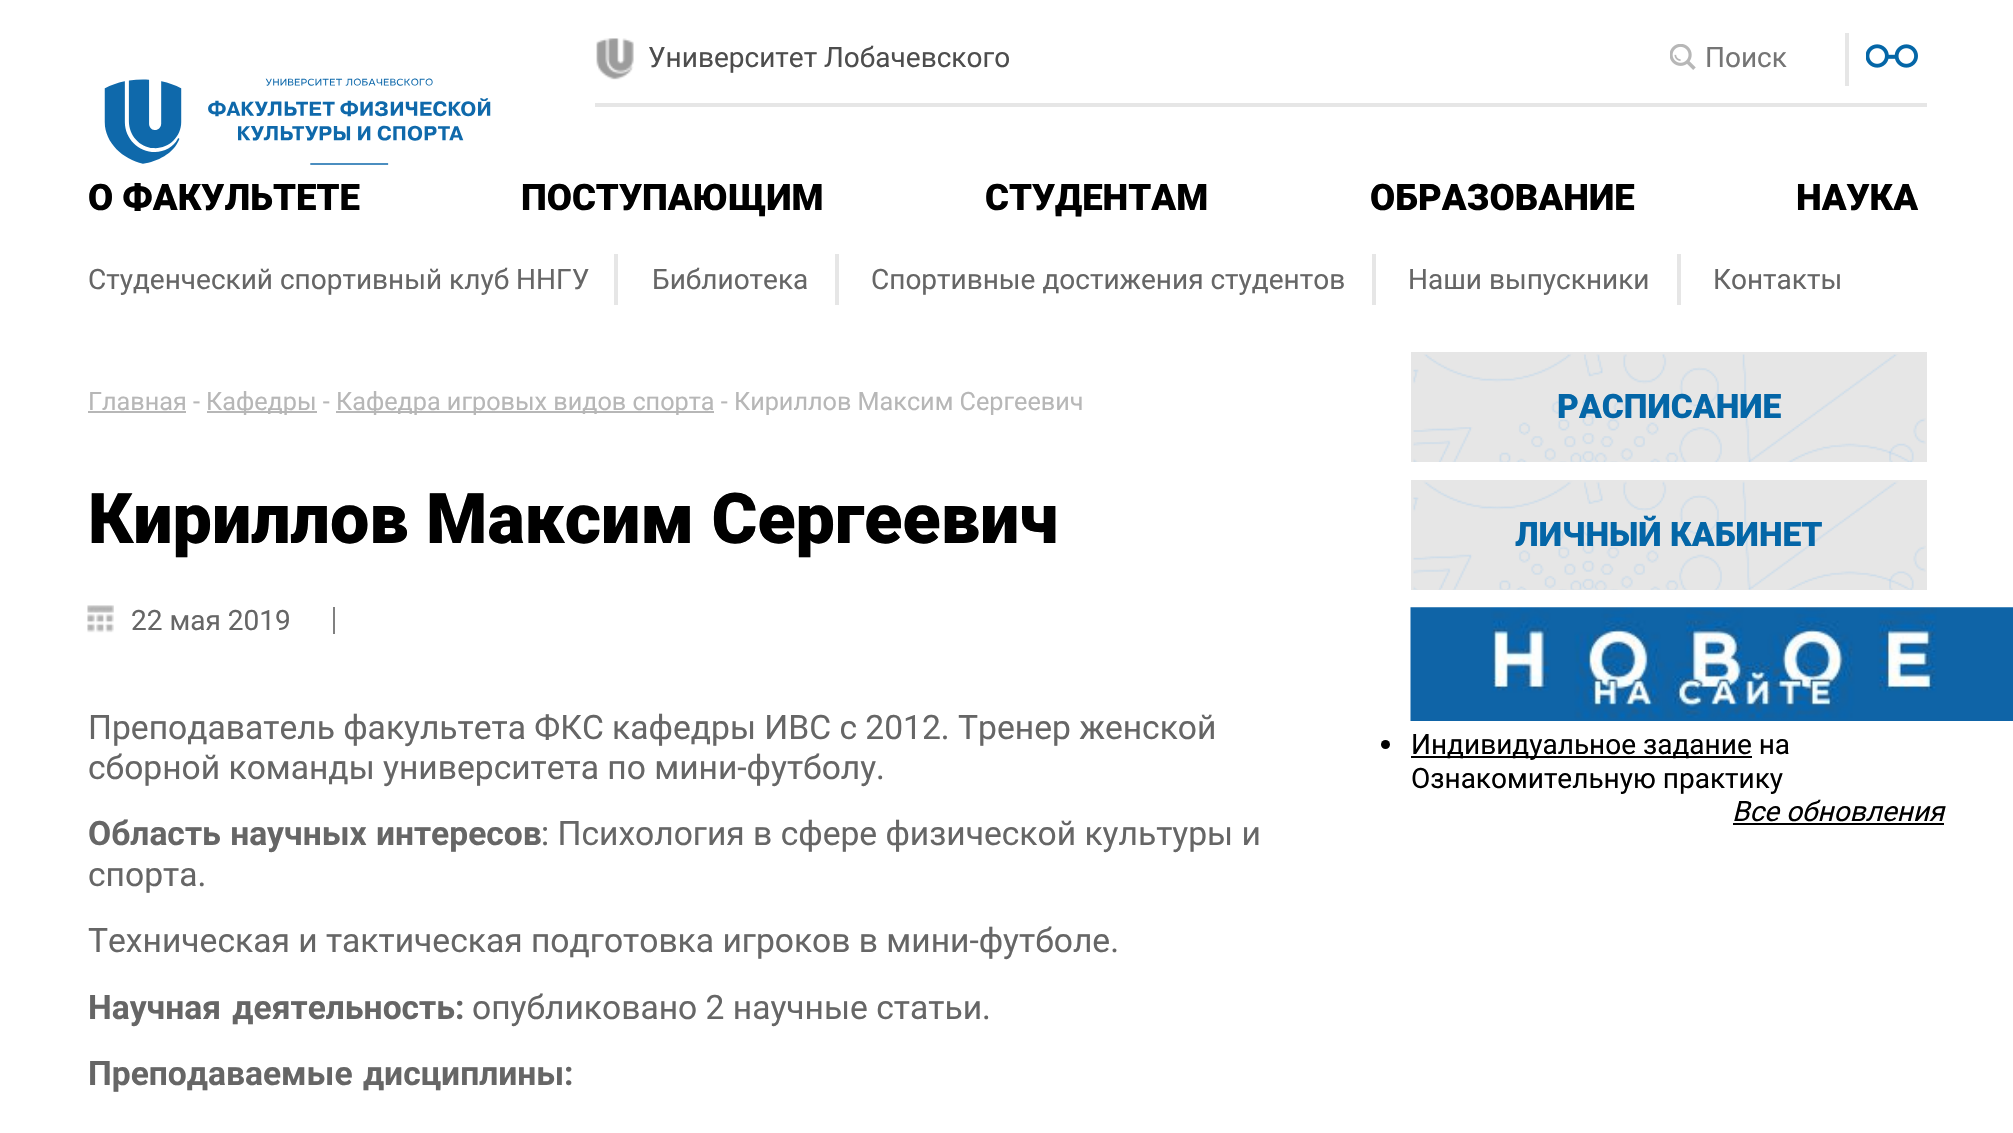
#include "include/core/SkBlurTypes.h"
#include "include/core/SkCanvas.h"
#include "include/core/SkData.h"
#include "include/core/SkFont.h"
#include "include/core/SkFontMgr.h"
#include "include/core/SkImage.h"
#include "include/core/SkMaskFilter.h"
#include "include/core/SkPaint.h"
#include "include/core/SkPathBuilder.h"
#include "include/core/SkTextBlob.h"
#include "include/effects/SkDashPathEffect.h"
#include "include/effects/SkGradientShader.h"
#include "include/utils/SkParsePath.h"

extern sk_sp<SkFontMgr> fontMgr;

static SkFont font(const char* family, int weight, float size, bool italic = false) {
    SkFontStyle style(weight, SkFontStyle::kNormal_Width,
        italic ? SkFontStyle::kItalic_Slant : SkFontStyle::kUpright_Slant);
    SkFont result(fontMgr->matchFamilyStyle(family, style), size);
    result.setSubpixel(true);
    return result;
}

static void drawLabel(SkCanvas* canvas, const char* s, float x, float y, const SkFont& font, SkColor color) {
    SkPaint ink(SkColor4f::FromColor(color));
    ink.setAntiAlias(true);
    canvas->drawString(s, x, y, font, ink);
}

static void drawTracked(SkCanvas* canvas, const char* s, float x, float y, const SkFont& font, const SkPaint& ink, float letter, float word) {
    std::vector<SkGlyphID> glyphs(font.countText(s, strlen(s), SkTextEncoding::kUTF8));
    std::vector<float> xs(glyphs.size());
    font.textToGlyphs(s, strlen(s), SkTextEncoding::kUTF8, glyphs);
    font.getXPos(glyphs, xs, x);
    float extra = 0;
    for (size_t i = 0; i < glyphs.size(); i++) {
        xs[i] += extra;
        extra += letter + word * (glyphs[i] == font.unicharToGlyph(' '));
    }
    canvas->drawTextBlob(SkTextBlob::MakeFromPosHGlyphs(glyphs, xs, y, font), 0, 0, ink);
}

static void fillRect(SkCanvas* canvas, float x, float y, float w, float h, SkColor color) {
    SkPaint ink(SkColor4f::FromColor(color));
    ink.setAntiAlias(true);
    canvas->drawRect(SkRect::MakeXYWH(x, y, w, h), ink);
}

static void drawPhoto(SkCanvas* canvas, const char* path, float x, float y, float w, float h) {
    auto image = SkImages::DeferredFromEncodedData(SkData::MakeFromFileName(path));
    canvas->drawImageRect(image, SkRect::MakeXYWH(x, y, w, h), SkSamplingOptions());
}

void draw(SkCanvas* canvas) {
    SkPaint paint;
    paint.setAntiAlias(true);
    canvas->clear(0xFFFFFFFF);
    fillRect(canvas, 595, 103, 1332, 4, 0xFFE6E6E6);
    drawPhoto(canvas, "assets/img1.png", 596, 38, 38, 42);
    SkFont font1 = font("Roboto", 400, 28);
    drawLabel(canvas, "Университет Лобачевского", 648, 67, font1, 0xFF4D4D4D);
    drawPhoto(canvas, "assets/img2.png", 1670, 44, 26, 26);
    drawLabel(canvas, "Поиск", 1705, 67, font1, 0xFF757575);
    fillRect(canvas, 1845, 33, 4, 53, 0xFFE6E6E6);
    drawPhoto(canvas, "assets/img3.png", 1866, 44, 52, 24);
    drawPhoto(canvas, "assets/img4.png", 104, 78, 387, 87);
    SkFont font2 = font("Roboto", 900, 36.5f);
    drawLabel(canvas, "О ФАКУЛЬТЕТЕ", 88, 210, font2, 0xFF000000);
    drawLabel(canvas, "ПОСТУПАЮЩИМ", 521, 210, font2, 0xFF000000);
    drawLabel(canvas, "СТУДЕНТАМ", 985, 210, font2, 0xFF000000);
    drawLabel(canvas, "ОБРАЗОВАНИЕ", 1370, 210, font2, 0xFF000000);
    drawLabel(canvas, "НАУКА", 1796, 210, font2, 0xFF000000);
    fillRect(canvas, 614, 254, 4, 51, 0xFFE6E6E6);
    drawLabel(canvas, "Студенческий спортивный клуб ННГУ", 88, 289, font1, 0xFF666666);
    fillRect(canvas, 835, 254, 4, 51, 0xFFE6E6E6);
    drawLabel(canvas, "Библиотека", 652, 289, font1, 0xFF666666);
    fillRect(canvas, 1372, 254, 4, 51, 0xFFE6E6E6);
    drawLabel(canvas, "Спортивные достижения студентов", 871, 289, font1, 0xFF666666);
    fillRect(canvas, 1677, 254, 4, 51, 0xFFE6E6E6);
    drawLabel(canvas, "Наши выпускники", 1408, 289, font1, 0xFF666666);
    drawLabel(canvas, "Контакты", 1713, 289, font1, 0xFF666666);
    SkFont font3 = font("Roboto", 400, 25.2f);
    drawLabel(canvas, "Главная -", 88, 410, font3, 0xFFB7B7B7);
    fillRect(canvas, 88, 411, 98, 2, 0xFFB7B7B7);
    fillRect(canvas, 207, 411, 110, 2, 0xFFB7B7B7);
    drawLabel(canvas, "Кафедры -", 206, 410, font3, 0xFFB7B7B7);
    fillRect(canvas, 336, 411, 378, 2, 0xFFB7B7B7);
    drawLabel(canvas, "Кафедра игровых видов спорта - Кириллов Максим Сергеевич", 336, 410, font3, 0xFFB7B7B7);
    SkFont font4 = font("Roboto", 900, 70);
    drawLabel(canvas, "Кириллов Максим Сергеевич", 88, 543, font4, 0xFF000000);
    drawPhoto(canvas, "assets/img5.png", 87, 605, 27, 28);
    drawLabel(canvas, "22 мая 2019", 131, 630, font1, 0xFF666666);
    fillRect(canvas, 333, 607, 2, 27, 0xFF808080);
    SkFont font5 = font("Roboto", 400, 33.6f);
    drawLabel(canvas, "Преподаватель факультета ФКС кафедры ИВС с 2012. Тренер женской", 88, 739, font5, 0xFF666666);
    drawLabel(canvas, "сборной команды университета по мини-футболу.", 88, 779, font5, 0xFF666666);
    SkFont font6 = font("Roboto", 700, 33.6f);
    paint.setColor(0xFF666666);
    drawTracked(canvas, "Область научных интересов", 88, 845, font6, paint, 0, 1);
    drawLabel(canvas, ": Психология в сфере физической культуры и", 541, 845, font5, 0xFF666666);
    drawLabel(canvas, "спорта.", 88, 886, font5, 0xFF666666);
    drawLabel(canvas, "Техническая и тактическая подготовка игроков в мини-футболе.", 88, 952, font5, 0xFF666666);
    drawTracked(canvas, "Научная деятельность:", 88, 1019, font6, paint, 0, 3);
    drawLabel(canvas, "опубликовано 2 научные статьи.", 472, 1019, font5, 0xFF666666);
    drawTracked(canvas, "Преподаваемые дисциплины:", 88, 1085, font6, paint, 0, 2);
    fillRect(canvas, 1411, 352, 516, 110, 0xFFE6E6E6);
    drawPhoto(canvas, "assets/img6.png", 1413, 354, 513, 108);
    SkFont font7 = font("Roboto", 900, 33.6f);
    drawLabel(canvas, "РАСПИСАНИЕ", 1557, 418, font7, 0xFF0466A7);
    fillRect(canvas, 1411, 480, 516, 110, 0xFFE6E6E6);
    drawPhoto(canvas, "assets/img7.png", 1413, 481, 513, 109);
    drawLabel(canvas, "ЛИЧНЫЙ КАБИНЕТ", 1515, 546, font7, 0xFF0466A7);
    drawPhoto(canvas, "assets/img8.png", 1410, 607, 603, 114);
    paint.setColor(0xFF000000);
    canvas->drawCircle(1385.5f, 744.5f, 4.5f, paint);
    fillRect(canvas, 1411, 756, 341, 2, 0xFF000000);
    drawLabel(canvas, "Индивидуальное задание на", 1411, 754, font1, 0xFF000000);
    drawLabel(canvas, "Ознакомительную практику", 1411, 788, font1, 0xFF000000);
    SkFont font8 = font("Roboto", 400, 28, true);
    drawLabel(canvas, "Все обновления", 1732, 821, font8, 0xFF000000);
    fillRect(canvas, 1733, 823, 211, 2, 0xFF000000);
}
